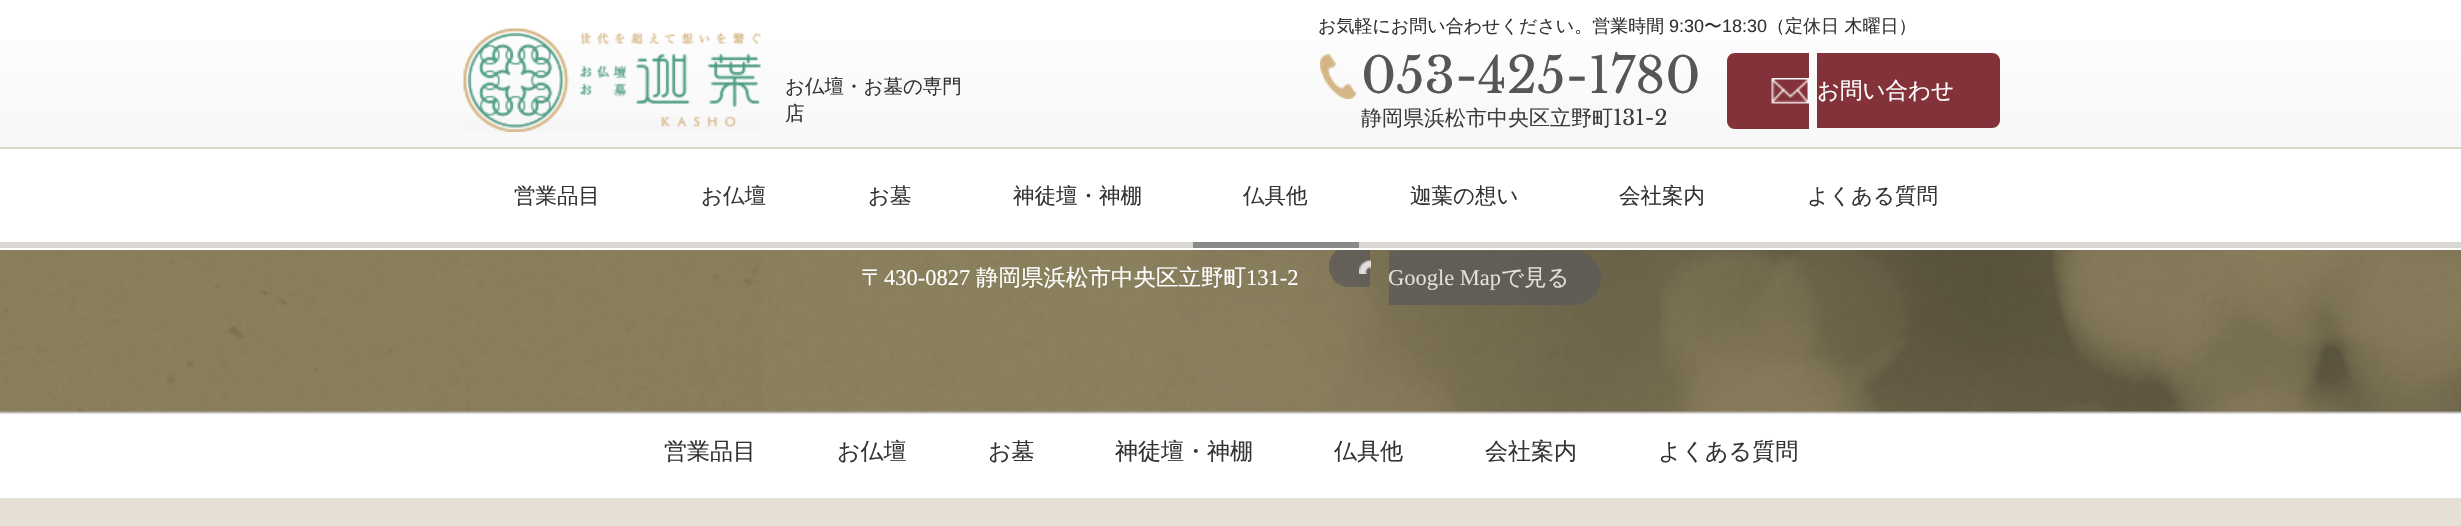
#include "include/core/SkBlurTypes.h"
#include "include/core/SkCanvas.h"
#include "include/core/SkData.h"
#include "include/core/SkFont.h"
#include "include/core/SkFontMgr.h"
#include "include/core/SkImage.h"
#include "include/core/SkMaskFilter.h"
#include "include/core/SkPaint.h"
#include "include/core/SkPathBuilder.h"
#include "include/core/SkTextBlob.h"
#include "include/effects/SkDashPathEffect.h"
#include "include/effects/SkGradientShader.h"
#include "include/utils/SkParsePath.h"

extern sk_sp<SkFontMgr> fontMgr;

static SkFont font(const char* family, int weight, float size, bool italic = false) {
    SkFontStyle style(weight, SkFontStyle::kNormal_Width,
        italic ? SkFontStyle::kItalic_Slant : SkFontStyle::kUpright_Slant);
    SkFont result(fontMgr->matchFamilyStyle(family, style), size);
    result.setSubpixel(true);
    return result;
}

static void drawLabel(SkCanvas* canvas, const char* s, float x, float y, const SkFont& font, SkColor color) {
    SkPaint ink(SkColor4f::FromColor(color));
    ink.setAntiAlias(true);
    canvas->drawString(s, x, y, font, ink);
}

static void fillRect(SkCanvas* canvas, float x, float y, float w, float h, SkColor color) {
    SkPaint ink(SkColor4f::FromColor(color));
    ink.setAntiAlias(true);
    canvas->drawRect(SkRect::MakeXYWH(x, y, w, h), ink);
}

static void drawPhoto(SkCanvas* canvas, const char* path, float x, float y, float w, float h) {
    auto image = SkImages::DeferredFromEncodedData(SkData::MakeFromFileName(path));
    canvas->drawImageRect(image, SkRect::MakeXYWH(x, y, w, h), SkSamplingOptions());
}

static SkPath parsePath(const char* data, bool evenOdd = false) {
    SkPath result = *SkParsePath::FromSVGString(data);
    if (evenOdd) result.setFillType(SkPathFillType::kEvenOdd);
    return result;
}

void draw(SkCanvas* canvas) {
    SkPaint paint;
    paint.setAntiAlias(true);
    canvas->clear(0xFFFFFFFF);
    drawPhoto(canvas, "assets/img4.png", 0, 250, 2461, 164);
    paint.setColor(0xCC5C5A57);
    canvas->drawPath(parsePath("M1349.5 246H1370V287H1349.5C1338 287 1329 278 1329 266.5C1329 255 1338 246 1349.5 246Z"), paint);
    fillRect(canvas, 1337, 248, 33, 2, 0xFFFFFFFF);
    {
        const SkColor colors[] = {0xFFFFFFFF, 0xFFF8F7F7};
        const float stops[] = {0, 1};
        const SkPoint ends[] = {{1231, -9}, {1231, 147}};
        paint.setShader(SkGradientShader::MakeLinear(ends, colors, stops, 2, SkTileMode::kClamp));
        paint.setAlpha(255);
    }
    canvas->drawRect(SkRect::MakeXYWH(0, 40, 2461, 107), paint);
    fillRect(canvas, 0, 147, 2461, 2, 0xFFDAD8CC);
    SkFont font1 = font("WenQuanYi Zen Hei", 500, 18);
    drawLabel(canvas, "お気軽にお問い合わせください。営業時間", 1318, 32, font1, 0xFF333333);
    SkFont font2 = font("Liberation Sans", 400, 18);
    drawLabel(canvas, "9:30", 1669, 32, font2, 0xFF333333);
    drawLabel(canvas, "〜", 1704, 32, font1, 0xFF333333);
    drawLabel(canvas, "18:30", 1722, 32, font2, 0xFF333333);
    drawLabel(canvas, "（定休日 木曜日）", 1767, 32, font1, 0xFF333333);
    drawPhoto(canvas, "assets/img1.png", 463, 28, 298, 104);
    SkFont font3 = font("WenQuanYi Zen Hei", 500, 19.5f);
    drawLabel(canvas, "お仏壇・お墓の専門", 785, 93, font3, 0xFF333333);
    drawLabel(canvas, "店", 785, 120, font3, 0xFF333333);
    drawPhoto(canvas, "assets/img2.png", 1320, 54, 36, 45);
    SkFont font4 = font("Libre Baskerville", 400, 49.5f);
    drawLabel(canvas, "053-425-1780", 1361, 93, font4, 0xFF575655);
    SkFont font5 = font("WenQuanYi Zen Hei", 500, 21);
    drawLabel(canvas, "静岡県浜松市中央区立野町", 1361, 125, font5, 0xFF3D3D3C);
    SkFont font6 = font("Libre Baskerville", 400, 21);
    drawLabel(canvas, "131-2", 1613, 125, font6, 0xFF3D3D3C);
    paint.setShader(nullptr);
    paint.setColor(0xFF84323A);
    canvas->drawPath(parsePath("M1735 53H1809V129H1735C1730.5 129 1727 125.5 1727 121V61C1727 56.5 1730.5 53 1735 53Z"), paint);
    canvas->drawPath(parsePath("M1817 53H1992C1996.5 53 2000 56.5 2000 61V120C2000 124.5 1996.5 128 1992 128H1817Z"), paint);
    drawPhoto(canvas, "assets/img3.png", 1771, 78, 38, 26);
    SkFont font7 = font("WenQuanYi Zen Hei", 500, 22.5f);
    drawLabel(canvas, "お問い合わせ", 1817, 98, font7, 0xFFFFFFFF);
    fillRect(canvas, 0, 242, 2461, 6, 0xFFDAD6D1);
    SkFont font8 = font("WenQuanYi Zen Hei", 500, 21.5f);
    drawLabel(canvas, "営業品目", 514, 203, font8, 0xFF333333);
    drawLabel(canvas, "お仏壇", 701, 203, font8, 0xFF333333);
    drawLabel(canvas, "お墓", 868, 203, font8, 0xFF333333);
    drawLabel(canvas, "神徒壇・神棚", 1013, 203, font8, 0xFF333333);
    drawLabel(canvas, "仏具他", 1243, 203, font8, 0xFF333333);
    fillRect(canvas, 1193, 242, 166, 6, 0xFF888888);
    drawLabel(canvas, "迦葉の想い", 1410, 203, font8, 0xFF333333);
    drawLabel(canvas, "会社案内", 1619, 203, font8, 0xFF333333);
    drawLabel(canvas, "よくある質問", 1807, 203, font8, 0xFF333333);
    drawLabel(canvas, "〒", 861, 285, font7, 0xFFFFFFFF);
    SkFont font9 = font("Liberation Serif", 400, 22.5f);
    drawLabel(canvas, "430-0827", 884, 285, font9, 0xFFFFFFFF);
    drawLabel(canvas, "静岡県浜松市中央区立野町", 976, 285, font7, 0xFFFFFFFF);
    drawLabel(canvas, "131-2", 1246, 285, font9, 0xFFFFFFFF);
    paint.setColor(0xCC5C5A57);
    canvas->drawPath(parsePath("M1389 251H1574C1589 251 1601 263 1601 278C1601 293 1589 305 1574 305H1389Z"), paint);
    drawPhoto(canvas, "assets/img5.png", 1359, 260, 12, 14);
    drawLabel(canvas, "Google Map", 1388, 285, font9, 0xFFDFDFDD);
    drawLabel(canvas, "で見る", 1501, 285, font7, 0xFFDFDFDD);
    SkFont font10 = font("WenQuanYi Zen Hei", 500, 23);
    drawLabel(canvas, "営業品目", 664, 459, font10, 0xFF333333);
    drawLabel(canvas, "お仏壇", 837, 459, font10, 0xFF333333);
    drawLabel(canvas, "お墓", 988, 459, font10, 0xFF333333);
    drawLabel(canvas, "神徒壇・神棚", 1115, 459, font10, 0xFF333333);
    drawLabel(canvas, "仏具他", 1334, 459, font10, 0xFF333333);
    drawLabel(canvas, "会社案内", 1485, 459, font10, 0xFF333333);
    drawLabel(canvas, "よくある質問", 1658, 459, font10, 0xFF333333);
    fillRect(canvas, 0, 498, 2461, 28, 0xFFE6DFD3);
}
